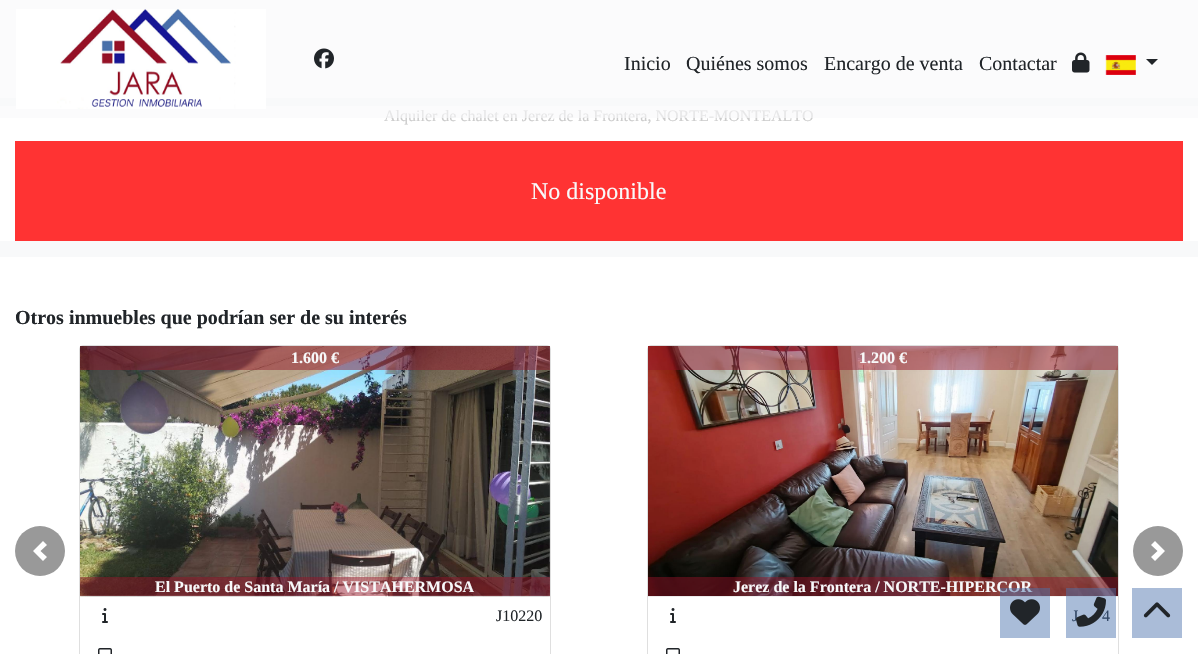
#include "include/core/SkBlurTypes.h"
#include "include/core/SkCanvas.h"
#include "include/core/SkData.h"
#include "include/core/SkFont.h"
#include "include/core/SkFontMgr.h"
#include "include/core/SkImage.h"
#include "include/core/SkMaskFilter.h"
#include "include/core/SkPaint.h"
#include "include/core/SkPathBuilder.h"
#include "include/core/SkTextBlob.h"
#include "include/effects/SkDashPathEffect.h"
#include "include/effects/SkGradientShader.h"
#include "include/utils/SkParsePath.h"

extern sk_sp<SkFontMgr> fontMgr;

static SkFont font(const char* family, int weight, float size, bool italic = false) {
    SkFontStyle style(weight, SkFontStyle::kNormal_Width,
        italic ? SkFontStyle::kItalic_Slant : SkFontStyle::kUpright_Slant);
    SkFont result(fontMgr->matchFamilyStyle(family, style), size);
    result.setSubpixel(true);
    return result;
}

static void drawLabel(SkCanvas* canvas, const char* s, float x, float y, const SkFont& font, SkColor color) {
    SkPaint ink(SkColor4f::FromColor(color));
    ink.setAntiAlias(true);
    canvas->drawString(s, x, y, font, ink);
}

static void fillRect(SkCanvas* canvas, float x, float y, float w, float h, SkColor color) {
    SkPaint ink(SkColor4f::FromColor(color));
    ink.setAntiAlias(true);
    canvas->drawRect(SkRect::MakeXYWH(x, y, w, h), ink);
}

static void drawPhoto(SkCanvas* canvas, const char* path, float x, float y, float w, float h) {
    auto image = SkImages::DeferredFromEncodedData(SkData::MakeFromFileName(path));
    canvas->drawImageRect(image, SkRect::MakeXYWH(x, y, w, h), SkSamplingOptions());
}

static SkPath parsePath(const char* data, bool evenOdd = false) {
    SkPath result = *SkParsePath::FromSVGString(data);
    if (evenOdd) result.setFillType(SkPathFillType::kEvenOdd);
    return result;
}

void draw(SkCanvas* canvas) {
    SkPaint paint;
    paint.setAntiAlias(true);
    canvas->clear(0xFFFFFFFF);
    fillRect(canvas, 0, 98, 1198, 159, 0xFFF8F9FA);
    fillRect(canvas, 0, 106, 1198, 135, 0xFFFFFFFF);
    SkFont font1 = font("Liberation Serif", 400, 16);
    drawLabel(canvas, "Alquiler de chalet en Jerez de la Frontera, NORTE-MONTEALTO", 384, 121, font1, 0xFFCCCCCC);
    fillRect(canvas, 0, 0, 1198, 118, 0x99F8F9FA);
    drawPhoto(canvas, "assets/img1.png", 16, 9, 250, 100);
    drawPhoto(canvas, "assets/img2.png", 314, 48, 20, 21);
    SkFont font2 = font("Liberation Serif", 400, 20);
    drawLabel(canvas, "Inicio", 624, 70, font2, 0xFF212529);
    drawLabel(canvas, "Quiénes somos", 686, 70, font2, 0xFF212529);
    drawLabel(canvas, "Encargo de venta", 824, 70, font2, 0xFF212529);
    drawLabel(canvas, "Contactar", 979, 70, font2, 0xFF212529);
    drawPhoto(canvas, "assets/img3.png", 1072, 52, 18, 21);
    drawPhoto(canvas, "assets/img4.png", 1105, 55, 31, 20);
    paint.setColor(0xFF212529);
    canvas->drawPath(parsePath("M1146 59H1158L1152 65Z"), paint);
    fillRect(canvas, 15, 141, 1168, 100, 0xFFFF3333);
    SkFont font3 = font("Liberation Serif", 400, 24);
    drawLabel(canvas, "No disponible", 531, 199, font3, 0xFFF8F9FA);
    SkFont font4 = font("Liberation Serif", 700, 20);
    drawLabel(canvas, "Otros inmuebles que podrían ser de su interés", 15, 324, font4, 0xFF212529);
    paint.setColor(0xFF999999);
    canvas->drawCircle(40, 551, 25, paint);
    paint.setColor(0xFFFFFFFF);
    canvas->drawPath(parsePath("M43 541L33 551L43 561L47 557L40.5 551L47 545Z"), paint);
    paint.setStroke(true);
    paint.setStrokeWidth(1);
    paint.setColor(0xFFDFDFDF);
    canvas->drawRoundRect(SkRect::MakeXYWH(79.5f, 345.5f, 471, 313), 3.5f, 3.5f, paint);
    drawPhoto(canvas, "assets/img5.png", 80, 346, 470, 251);
    fillRect(canvas, 80, 346, 470, 24, 0x78951126);
    SkFont font5 = font("Liberation Serif", 700, 16);
    drawLabel(canvas, "1.600 €", 291, 363, font5, 0xFFF8F9FA);
    fillRect(canvas, 80, 577, 470, 19, 0x78951126);
    drawLabel(canvas, "El Puerto de Santa María / VISTAHERMOSA", 155, 592, font5, 0xFFF8F9FA);
    drawPhoto(canvas, "assets/img6.png", 102, 608, 6, 15);
    drawLabel(canvas, "J10220", 496, 621, font1, 0xFF212529);
    drawPhoto(canvas, "assets/img7.png", 98, 648, 14, 6);
    canvas->drawRoundRect(SkRect::MakeXYWH(647.5f, 345.5f, 471, 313), 3.5f, 3.5f, paint);
    drawPhoto(canvas, "assets/img8.png", 648, 346, 470, 251);
    fillRect(canvas, 648, 346, 470, 24, 0x78951126);
    drawLabel(canvas, "1.200 €", 859, 363, font5, 0xFFF8F9FA);
    fillRect(canvas, 648, 577, 470, 19, 0x78951126);
    drawLabel(canvas, "Jerez de la Frontera / NORTE-HIPERCOR", 733, 592, font5, 0xFFF8F9FA);
    drawPhoto(canvas, "assets/img6.png", 670, 608, 6, 15);
    drawLabel(canvas, "J", 1072, 621, font1, 0xFF212529);
    drawLabel(canvas, "4", 1102, 621, font1, 0xFF212529);
    drawPhoto(canvas, "assets/img7.png", 666, 648, 14, 6);
    paint.setStroke(false);
    paint.setColor(0xFF999999);
    canvas->drawCircle(1158, 551, 25, paint);
    paint.setColor(0xFFFFFFFF);
    canvas->drawPath(parsePath("M1155 541L1151 545L1157.5 551L1151 557L1155 561L1165 551Z"), paint);
    fillRect(canvas, 1000, 588, 50, 50, 0x784870AC);
    drawPhoto(canvas, "assets/img9.png", 1010, 599, 30, 26);
    fillRect(canvas, 1066, 588, 50, 50, 0x784870AC);
    drawPhoto(canvas, "assets/img10.png", 1076, 596, 30, 31);
    fillRect(canvas, 1132, 588, 50, 50, 0xFFAABCD8);
    drawPhoto(canvas, "assets/img11.png", 1143, 602, 28, 16);
}
